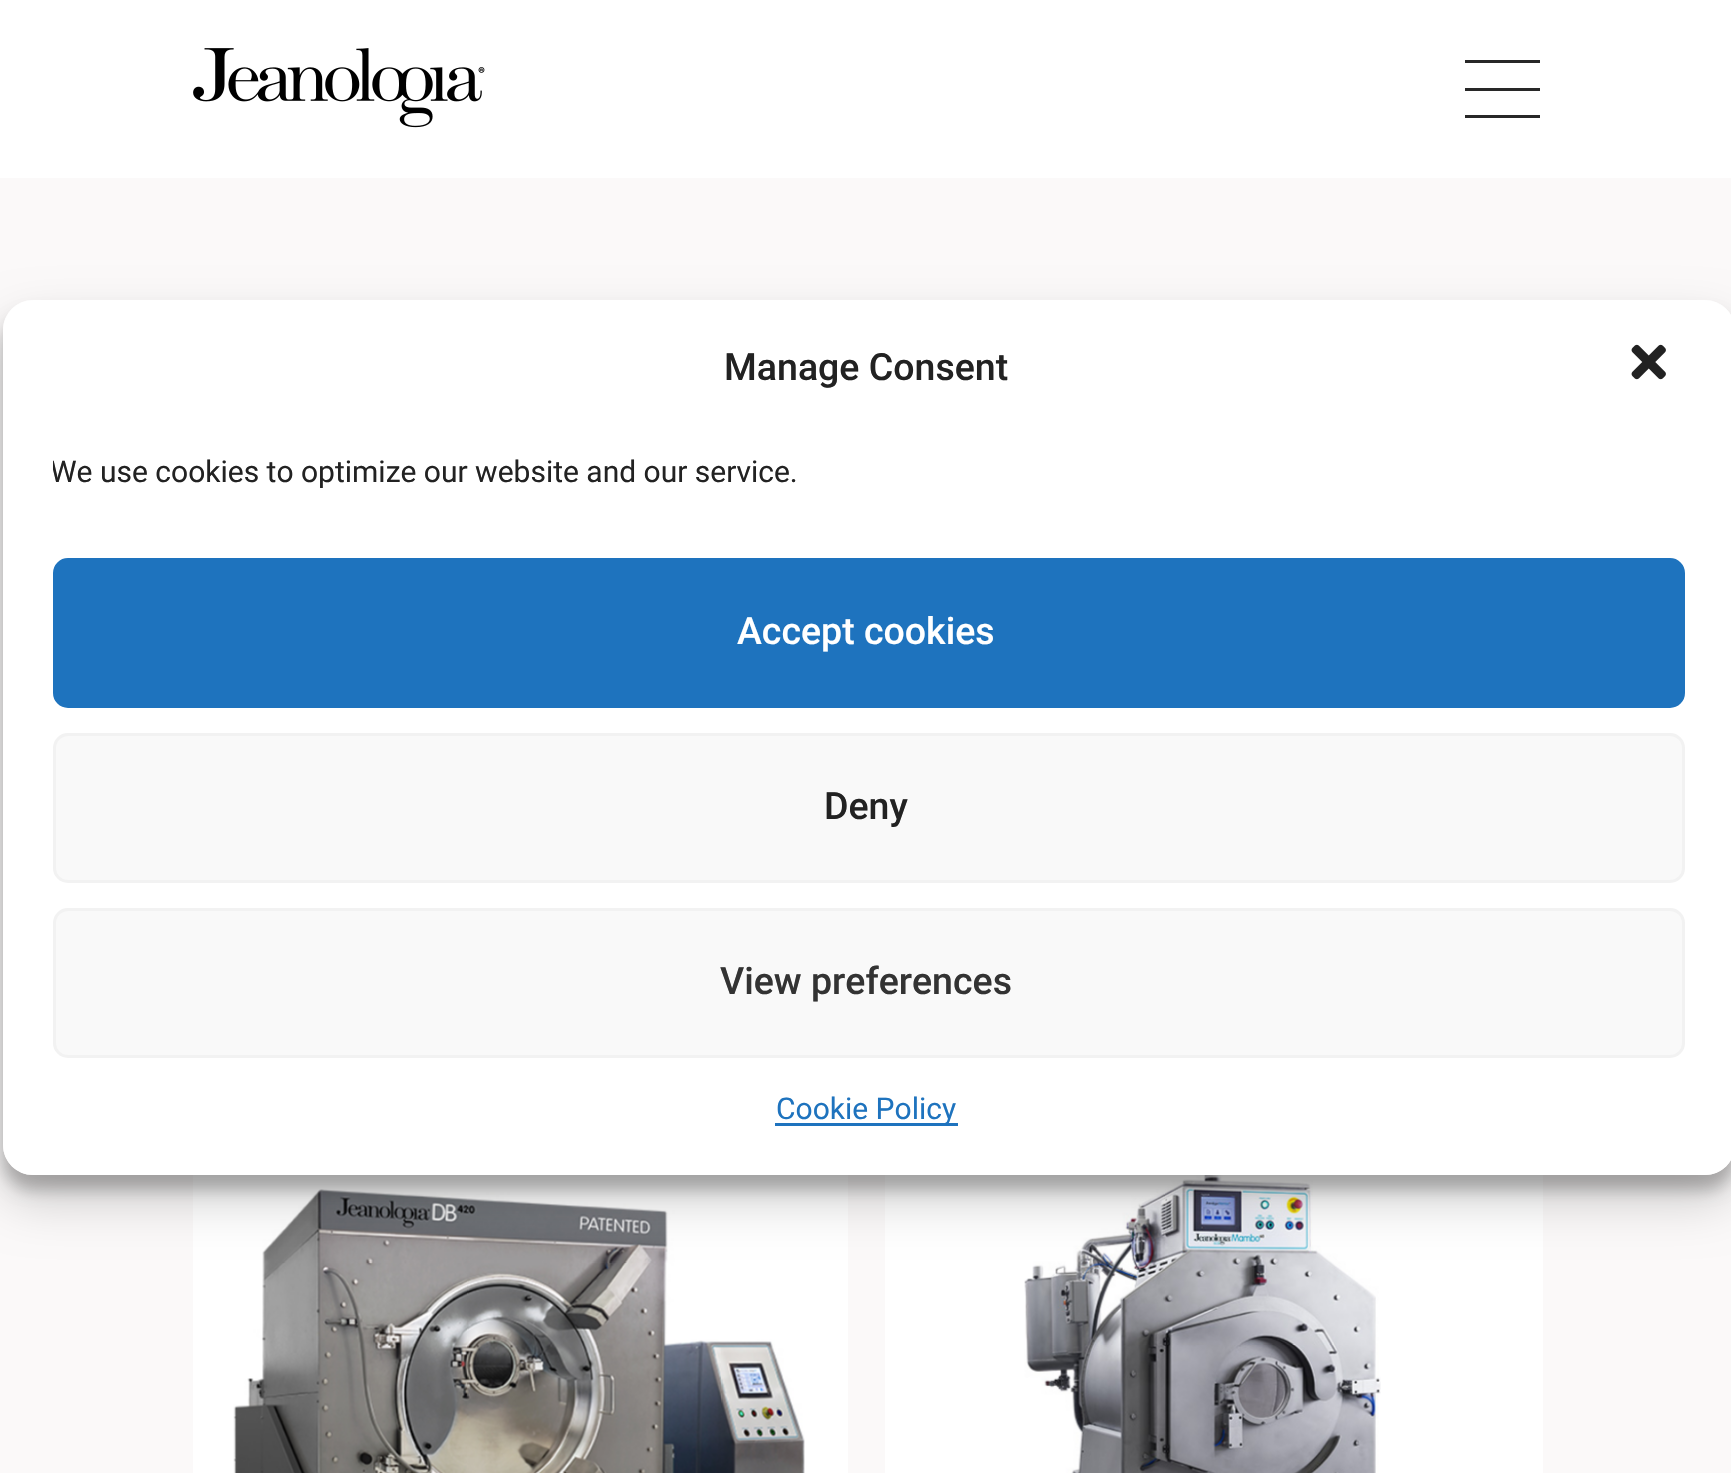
#include "include/core/SkBlurTypes.h"
#include "include/core/SkCanvas.h"
#include "include/core/SkData.h"
#include "include/core/SkFont.h"
#include "include/core/SkFontMgr.h"
#include "include/core/SkImage.h"
#include "include/core/SkMaskFilter.h"
#include "include/core/SkPaint.h"
#include "include/core/SkPathBuilder.h"
#include "include/core/SkTextBlob.h"
#include "include/effects/SkDashPathEffect.h"
#include "include/effects/SkGradientShader.h"
#include "include/utils/SkParsePath.h"

extern sk_sp<SkFontMgr> fontMgr;

static SkFont font(const char* family, int weight, float size, bool italic = false) {
    SkFontStyle style(weight, SkFontStyle::kNormal_Width,
        italic ? SkFontStyle::kItalic_Slant : SkFontStyle::kUpright_Slant);
    SkFont result(fontMgr->matchFamilyStyle(family, style), size);
    result.setSubpixel(true);
    return result;
}

static void drawLabel(SkCanvas* canvas, const char* s, float x, float y, const SkFont& font, SkColor color) {
    SkPaint ink(SkColor4f::FromColor(color));
    ink.setAntiAlias(true);
    canvas->drawString(s, x, y, font, ink);
}

static void fillRect(SkCanvas* canvas, float x, float y, float w, float h, SkColor color) {
    SkPaint ink(SkColor4f::FromColor(color));
    ink.setAntiAlias(true);
    canvas->drawRect(SkRect::MakeXYWH(x, y, w, h), ink);
}

static void fillRRect(SkCanvas* canvas, float x, float y, float w, float h, float radius, SkColor color) {
    SkPaint ink(SkColor4f::FromColor(color));
    ink.setAntiAlias(true);
    canvas->drawRoundRect(SkRect::MakeXYWH(x, y, w, h), radius, radius, ink);
}

static void drawPhoto(SkCanvas* canvas, const char* path, float x, float y, float w, float h) {
    auto image = SkImages::DeferredFromEncodedData(SkData::MakeFromFileName(path));
    canvas->drawImageRect(image, SkRect::MakeXYWH(x, y, w, h), SkSamplingOptions());
}

static SkPath parsePath(const char* data, bool evenOdd = false) {
    SkPath result = *SkParsePath::FromSVGString(data);
    if (evenOdd) result.setFillType(SkPathFillType::kEvenOdd);
    return result;
}

void draw(SkCanvas* canvas) {
    SkPaint paint;
    paint.setAntiAlias(true);
    canvas->clear(0xFFFBF9F9);
    fillRect(canvas, 0, 0, 1731, 178, 0xFFFFFFFF);
    drawPhoto(canvas, "assets/img1.png", 193, 48, 292, 80);
    fillRect(canvas, 1465, 60, 75, 3, 0xFF282828);
    fillRect(canvas, 1465, 88, 75, 3, 0xFF282828);
    fillRect(canvas, 1465, 115, 75, 3, 0xFF282828);
    fillRect(canvas, 193, 1175, 655, 298, 0xFFFFFFFF);
    drawPhoto(canvas, "assets/img3.png", 233, 1189, 572, 284);
    fillRect(canvas, 885, 1175, 658, 298, 0xFFFFFFFF);
    drawPhoto(canvas, "assets/img4.png", 1024, 1175, 357, 298);
    canvas->save();
    canvas->clipPath(parsePath("M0 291H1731V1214H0ZM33 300H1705C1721.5 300 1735 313.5 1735 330V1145C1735 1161.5 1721.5 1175 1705 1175H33C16.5 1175 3 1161.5 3 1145V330C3 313.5 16.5 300 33 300Z", true), true);
    paint.setColor(0x3B000000);
    paint.setMaskFilter(SkMaskFilter::MakeBlur(kNormal_SkBlurStyle, 7.5f));
    canvas->drawRoundRect(SkRect::MakeXYWH(3, 315, 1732, 875), 30, 30, paint);
    paint.setMaskFilter(nullptr);
    canvas->restore();
    canvas->save();
    canvas->clipPath(parsePath("M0 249H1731V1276H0ZM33 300H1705C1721.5 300 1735 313.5 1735 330V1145C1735 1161.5 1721.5 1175 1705 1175H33C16.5 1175 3 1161.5 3 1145V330C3 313.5 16.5 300 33 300Z", true), true);
    paint.setColor(0x30000000);
    paint.setMaskFilter(SkMaskFilter::MakeBlur(kNormal_SkBlurStyle, 25));
    canvas->drawRoundRect(SkRect::MakeXYWH(3, 325, 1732, 875), 30, 30, paint);
    paint.setMaskFilter(nullptr);
    canvas->restore();
    fillRRect(canvas, 3, 300, 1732, 875, 30, 0xFFFFFFFF);
    SkFont font1 = font("Roboto", 500, 37.5f);
    drawLabel(canvas, "Manage Consent", 724, 380, font1, 0xFF222222);
    drawPhoto(canvas, "assets/img2.png", 1631, 344, 35, 36);
    canvas->save();
    canvas->clipRect(SkRect::MakeXYWH(53, 450, 1632, 58));
    SkFont font2 = font("Roboto", 400, 30);
    drawLabel(canvas, "We use cookies to optimize our website and our service.", 50, 482, font2, 0xFF222222);
    canvas->restore();
    paint.setColor(0xFF1E73BE);
    canvas->drawRoundRect(SkRect::MakeXYWH(54.5f, 559.5f, 1629, 147), 13.5f, 13.5f, paint);
    paint.setStroke(true);
    paint.setStrokeWidth(3);
    canvas->drawRoundRect(SkRect::MakeXYWH(54.5f, 559.5f, 1629, 147), 13.5f, 13.5f, paint);
    drawLabel(canvas, "Accept cookies", 737, 644, font1, 0xFFFFFFFF);
    paint.setStroke(false);
    paint.setColor(0xFFF9F9F9);
    canvas->drawRoundRect(SkRect::MakeXYWH(54.5f, 734.5f, 1629, 147), 13.5f, 13.5f, paint);
    paint.setStroke(true);
    paint.setColor(0xFFF2F2F2);
    canvas->drawRoundRect(SkRect::MakeXYWH(54.5f, 734.5f, 1629, 147), 13.5f, 13.5f, paint);
    drawLabel(canvas, "Deny", 824, 819, font1, 0xFF222222);
    paint.setStroke(false);
    paint.setColor(0xFFF9F9F9);
    canvas->drawRoundRect(SkRect::MakeXYWH(54.5f, 909.5f, 1629, 147), 13.5f, 13.5f, paint);
    paint.setStroke(true);
    paint.setColor(0xFFF2F2F2);
    canvas->drawRoundRect(SkRect::MakeXYWH(54.5f, 909.5f, 1629, 147), 13.5f, 13.5f, paint);
    drawLabel(canvas, "View preferences", 720, 994, font1, 0xFF333333);
    fillRect(canvas, 775, 1123, 183, 3, 0xFF1E73BE);
    drawLabel(canvas, "Cookie Policy", 776, 1119, font2, 0xFF1E73BE);
}
